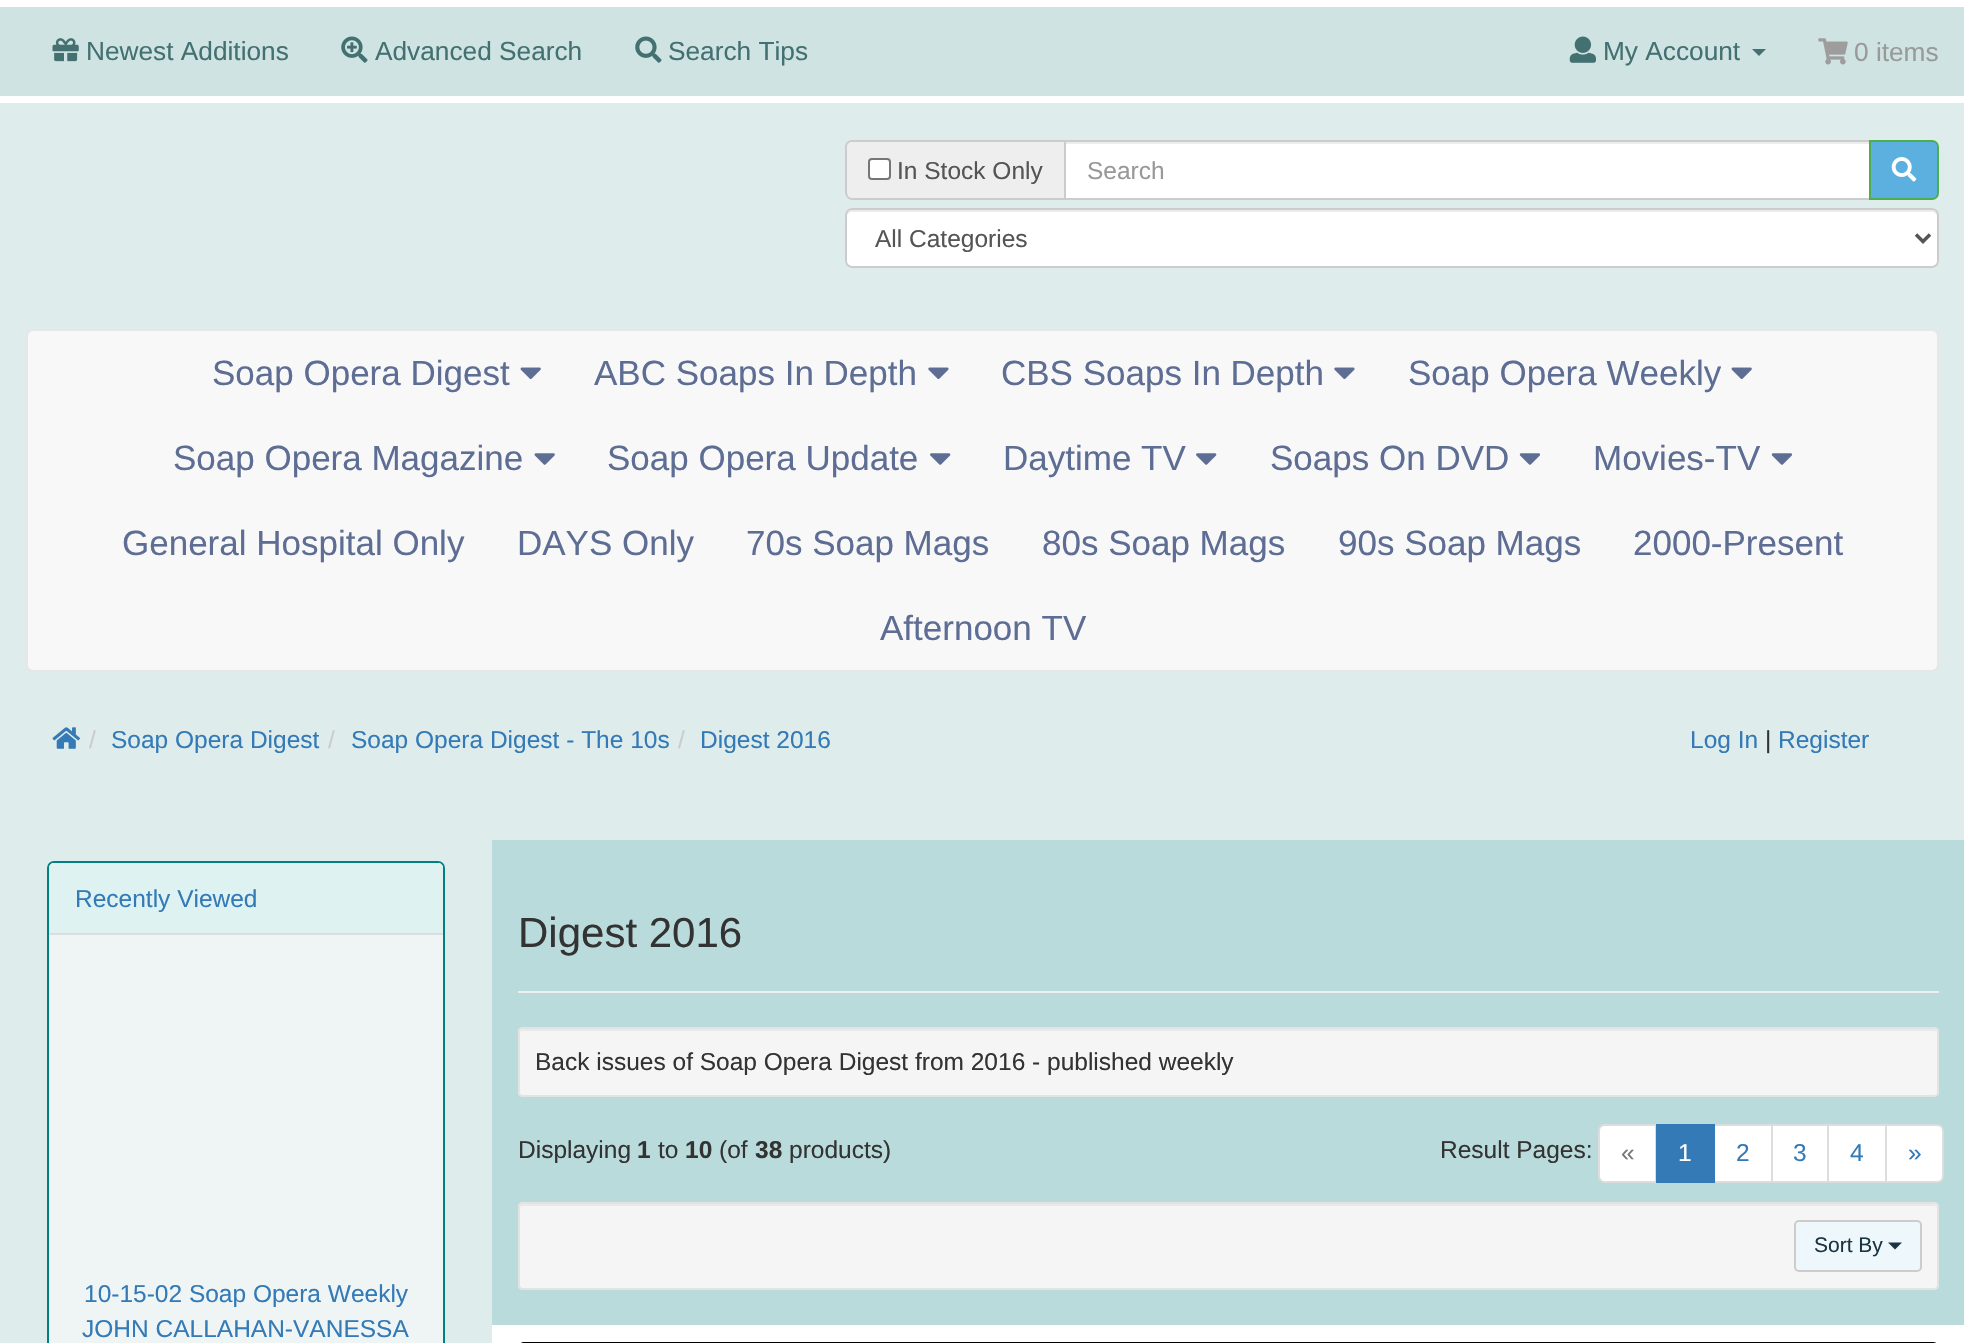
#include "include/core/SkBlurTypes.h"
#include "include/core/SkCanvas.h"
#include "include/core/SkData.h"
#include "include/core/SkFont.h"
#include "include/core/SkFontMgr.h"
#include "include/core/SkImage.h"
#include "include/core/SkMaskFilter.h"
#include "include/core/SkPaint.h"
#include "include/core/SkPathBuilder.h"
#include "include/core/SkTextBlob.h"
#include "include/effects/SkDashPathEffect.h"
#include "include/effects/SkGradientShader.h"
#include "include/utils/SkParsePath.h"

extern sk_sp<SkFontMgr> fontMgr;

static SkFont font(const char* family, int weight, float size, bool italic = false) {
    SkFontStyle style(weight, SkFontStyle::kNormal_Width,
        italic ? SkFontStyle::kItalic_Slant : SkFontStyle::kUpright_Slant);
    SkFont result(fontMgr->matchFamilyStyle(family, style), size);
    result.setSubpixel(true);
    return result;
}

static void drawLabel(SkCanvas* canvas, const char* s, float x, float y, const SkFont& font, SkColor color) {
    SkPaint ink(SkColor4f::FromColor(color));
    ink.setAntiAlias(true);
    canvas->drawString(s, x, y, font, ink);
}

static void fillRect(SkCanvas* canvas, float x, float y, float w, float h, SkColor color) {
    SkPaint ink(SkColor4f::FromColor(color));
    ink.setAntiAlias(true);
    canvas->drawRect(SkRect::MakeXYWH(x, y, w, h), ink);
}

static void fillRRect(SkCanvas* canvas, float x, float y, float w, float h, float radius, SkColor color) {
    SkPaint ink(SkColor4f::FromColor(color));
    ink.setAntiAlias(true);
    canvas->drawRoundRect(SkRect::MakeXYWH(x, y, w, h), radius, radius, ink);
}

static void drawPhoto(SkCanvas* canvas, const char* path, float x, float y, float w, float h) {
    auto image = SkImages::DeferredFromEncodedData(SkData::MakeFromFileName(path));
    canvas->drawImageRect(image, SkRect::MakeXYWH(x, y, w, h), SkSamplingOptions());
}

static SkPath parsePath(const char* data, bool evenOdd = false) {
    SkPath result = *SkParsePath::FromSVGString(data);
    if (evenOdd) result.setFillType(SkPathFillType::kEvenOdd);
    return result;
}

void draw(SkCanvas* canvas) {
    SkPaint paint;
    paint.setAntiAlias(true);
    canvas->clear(0xFFDFECEC);
    fillRect(canvas, 0, 7, 1964, 89, 0xFFCFE3E3);
    fillRect(canvas, 0, 0, 1964, 7, 0xFFFFFFFF);
    fillRect(canvas, 0, 96, 1964, 7, 0xFFFFFFFF);
    drawPhoto(canvas, "assets/img1.png", 52, 38, 27, 24);
    SkFont font1 = font("Liberation Sans", 400, 26.25f);
    drawLabel(canvas, "Newest Additions", 86, 60, font1, 0xFF437070);
    drawPhoto(canvas, "assets/img2.png", 341, 36, 27, 27);
    drawLabel(canvas, "Advanced Search", 375, 60, font1, 0xFF437070);
    drawPhoto(canvas, "assets/img3.png", 635, 36, 27, 27);
    drawLabel(canvas, "Search Tips", 668, 60, font1, 0xFF437070);
    drawPhoto(canvas, "assets/img4.png", 1569, 36, 27, 27);
    drawLabel(canvas, "My Account", 1603, 60, font1, 0xFF437070);
    paint.setColor(0xFF437070);
    canvas->drawPath(parsePath("M1752 49H1766L1759 56Z"), paint);
    drawPhoto(canvas, "assets/img5.png", 1818, 38, 30, 27);
    drawLabel(canvas, "0 items", 1854, 61, font1, 0xFF999999);
    paint.setColor(0xFFEEEEEE);
    canvas->drawPath(parsePath("M852 140H1064V200H852C848 200 845 197 845 193V147C845 143 848 140 852 140Z"), paint);
    paint.setColor(0xFFCCCCCC);
    canvas->drawPath(parsePath("M852 140H1064V200H852C848 200 845 196 845 192V147C845 143 848 140 852 140ZM852 142H1064V198H852C849 198 847 195 847 192V147C847 144 849 142 852 142Z", true), paint);
    paint.setColor(0xFFFFFFFF);
    canvas->drawRoundRect(SkRect::MakeXYWH(869, 159, 21, 20), 3, 3, paint);
    paint.setStroke(true);
    paint.setStrokeWidth(2);
    paint.setColor(0xFF767676);
    canvas->drawRoundRect(SkRect::MakeXYWH(869, 159, 21, 20), 3, 3, paint);
    SkFont font2 = font("Liberation Sans", 400, 24.5f);
    drawLabel(canvas, "In Stock Only", 897, 179, font2, 0xFF555555);
    fillRect(canvas, 1066, 144, 803, 54, 0xFFFFFFFF);
    fillRect(canvas, 1066, 142, 803, 2, 0xFFECECEC);
    paint.setColor(0xFFCCCCCC);
    canvas->drawRect(SkRect::MakeXYWH(1065, 141, 805, 58), paint);
    drawLabel(canvas, "Search", 1087, 179, font2, 0xFF999999);
    paint.setStroke(false);
    paint.setColor(0xFF5CB0DF);
    canvas->drawPath(parsePath("M1870 141H1932C1935.5 141 1938 143.5 1938 147V193C1938 196.5 1935.5 199 1932 199H1870Z"), paint);
    paint.setStroke(true);
    paint.setColor(0xFF4CAE4C);
    canvas->drawPath(parsePath("M1870 141H1932C1935.5 141 1938 143.5 1938 147V193C1938 196.5 1935.5 199 1932 199H1870Z"), paint);
    drawPhoto(canvas, "assets/img6.png", 1891, 157, 26, 25);
    fillRRect(canvas, 845, 208, 1094, 60, 7, 0xFFFFFFFF);
    paint.setStroke(false);
    paint.setColor(0xFFECECEC);
    canvas->drawPath(parsePath("M852 212H1932C1935 212 1937 214 1937 217V215C1937 212 1935 210 1932 210H852C849 210 847 212 847 215V217C847 214 849 212 852 212Z"), paint);
    paint.setStroke(true);
    paint.setColor(0xFFCCCCCC);
    canvas->drawRoundRect(SkRect::MakeXYWH(846, 209, 1092, 58), 6, 6, paint);
    paint.setStrokeWidth(3.5f);
    paint.setColor(0xFF555555);
    canvas->drawPath(parsePath("M1916 234.5L1923 241.5L1930 234.5"), paint);
    drawLabel(canvas, "All Categories", 875, 247, font2, 0xFF555555);
    paint.setStroke(false);
    paint.setColor(0xFFF8F8F8);
    canvas->drawRoundRect(SkRect::MakeXYWH(27, 330, 1911, 341), 6, 6, paint);
    paint.setStroke(true);
    paint.setStrokeWidth(2);
    paint.setColor(0xFFE7E7E7);
    canvas->drawRoundRect(SkRect::MakeXYWH(27, 330, 1911, 341), 6, 6, paint);
    SkFont font3 = font("Liberation Sans", 400, 35);
    drawLabel(canvas, "Soap Opera Digest", 212, 385, font3, 0xFF5D6D93);
    drawPhoto(canvas, "assets/img7.png", 520, 367, 21, 12);
    drawLabel(canvas, "ABC Soaps In Depth", 594, 385, font3, 0xFF5D6D93);
    drawPhoto(canvas, "assets/img8.png", 928, 367, 21, 12);
    drawLabel(canvas, "CBS Soaps In Depth", 1001, 385, font3, 0xFF5D6D93);
    drawPhoto(canvas, "assets/img8.png", 1334, 367, 21, 12);
    drawLabel(canvas, "Soap Opera Weekly", 1408, 385, font3, 0xFF5D6D93);
    drawPhoto(canvas, "assets/img7.png", 1731, 367, 21, 12);
    drawLabel(canvas, "Soap Opera Magazine", 173, 470, font3, 0xFF5D6D93);
    drawPhoto(canvas, "assets/img9.png", 534, 453, 21, 12);
    drawLabel(canvas, "Soap Opera Update", 607, 470, font3, 0xFF5D6D93);
    drawPhoto(canvas, "assets/img10.png", 930, 453, 21, 12);
    drawLabel(canvas, "Daytime TV", 1003, 470, font3, 0xFF5D6D93);
    drawPhoto(canvas, "assets/img10.png", 1196, 453, 21, 12);
    drawLabel(canvas, "Soaps On DVD", 1270, 470, font3, 0xFF5D6D93);
    drawPhoto(canvas, "assets/img11.png", 1519, 453, 22, 12);
    drawLabel(canvas, "Movies-TV", 1593, 470, font3, 0xFF5D6D93);
    drawPhoto(canvas, "assets/img11.png", 1771, 453, 22, 12);
    drawLabel(canvas, "General Hospital Only", 122, 555, font3, 0xFF5D6D93);
    drawLabel(canvas, "DAYS Only", 517, 555, font3, 0xFF5D6D93);
    drawLabel(canvas, "70s Soap Mags", 746, 555, font3, 0xFF5D6D93);
    drawLabel(canvas, "80s Soap Mags", 1042, 555, font3, 0xFF5D6D93);
    drawLabel(canvas, "90s Soap Mags", 1338, 555, font3, 0xFF5D6D93);
    drawLabel(canvas, "2000-Present", 1633, 555, font3, 0xFF5D6D93);
    drawLabel(canvas, "Afternoon TV", 880, 640, font3, 0xFF5D6D93);
    drawPhoto(canvas, "assets/img12.png", 52, 727, 28, 22);
    drawLabel(canvas, "/", 89, 748, font2, 0xFFCCCCCC);
    drawLabel(canvas, "Soap Opera Digest", 111, 748, font2, 0xFF337AB7);
    drawLabel(canvas, "/", 328, 748, font2, 0xFFCCCCCC);
    drawLabel(canvas, "Soap Opera Digest - The 10s", 351, 748, font2, 0xFF337AB7);
    drawLabel(canvas, "/", 678, 748, font2, 0xFFCCCCCC);
    drawLabel(canvas, "Digest 2016", 700, 748, font2, 0xFF337AB7);
    drawLabel(canvas, "Log In", 1690, 748, font2, 0xFF337AB7);
    drawLabel(canvas, "|", 1765, 748, font2, 0xFF333333);
    drawLabel(canvas, "Register", 1778, 748, font2, 0xFF337AB7);
    paint.setStroke(false);
    paint.setColor(0xFFEFF5F5);
    canvas->drawRoundRect(SkRect::MakeXYWH(48, 862, 396, 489), 6, 6, paint);
    paint.setStroke(true);
    paint.setColor(0xFF008080);
    canvas->drawRoundRect(SkRect::MakeXYWH(48, 862, 396, 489), 6, 6, paint);
    paint.setStroke(false);
    paint.setColor(0xFFDEF2F2);
    canvas->drawPath(parsePath("M54 863H438C441 863 443 865 443 868V935H49V868C49 865 51 863 54 863Z"), paint);
    fillRect(canvas, 49, 933, 394, 2, 0xFFDDDDDD);
    drawLabel(canvas, "Recently Viewed", 75, 907, font2, 0xFF337AB7);
    drawLabel(canvas, "10-15-02 Soap Opera Weekly", 84, 1302, font2, 0xFF337AB7);
    drawLabel(canvas, "JOHN CALLAHAN-VANESSA", 82, 1337, font2, 0xFF337AB7);
    fillRect(canvas, 492, 840, 1472, 485, 0xFFBADBDB);
    fillRect(canvas, 518, 991, 1421, 2, 0xFFEEEEEE);
    SkFont font4 = font("Liberation Sans", 400, 42);
    drawLabel(canvas, "Digest 2016", 518, 947, font4, 0xFF333333);
    fillRRect(canvas, 518, 1027, 1421, 70, 5, 0xFFF5F5F5);
    paint.setColor(0xFFE9E9E9);
    canvas->drawPath(parsePath("M523 1031H1934C1936 1031 1937 1032 1937 1034V1033C1937 1031 1935 1029 1933 1029H524C522 1029 520 1031 520 1033V1034C520 1032 521 1031 523 1031Z"), paint);
    paint.setStroke(true);
    paint.setColor(0xFFE3E3E3);
    canvas->drawRoundRect(SkRect::MakeXYWH(519, 1028, 1419, 68), 4, 4, paint);
    drawLabel(canvas, "Back issues of Soap Opera Digest from 2016 - published weekly", 535, 1070, font2, 0xFF333333);
    drawLabel(canvas, "Displaying", 518, 1158, font2, 0xFF333333);
    SkFont font5 = font("Liberation Sans", 700, 24.5f);
    drawLabel(canvas, "1", 637, 1158, font5, 0xFF333333);
    drawLabel(canvas, "to", 658, 1158, font2, 0xFF333333);
    drawLabel(canvas, "10", 685, 1158, font5, 0xFF333333);
    drawLabel(canvas, "(of", 719, 1158, font2, 0xFF333333);
    drawLabel(canvas, "38", 755, 1158, font5, 0xFF333333);
    drawLabel(canvas, "products)", 789, 1158, font2, 0xFF333333);
    drawLabel(canvas, "Result Pages:", 1440, 1158, font2, 0xFF333333);
    paint.setStroke(false);
    paint.setColor(0xFFFFFFFF);
    canvas->drawPath(parsePath("M1605 1125H1656V1182H1605C1601.5 1182 1599 1179.5 1599 1176V1131C1599 1127.5 1601.5 1125 1605 1125Z"), paint);
    paint.setStroke(true);
    paint.setColor(0xFFDDDDDD);
    canvas->drawPath(parsePath("M1605 1125H1656V1182H1605C1601.5 1182 1599 1179.5 1599 1176V1131C1599 1127.5 1601.5 1125 1605 1125Z"), paint);
    drawLabel(canvas, "«", 1621, 1161, font2, 0xFF777777);
    paint.setStroke(false);
    paint.setColor(0xFFFFFFFF);
    canvas->drawRect(SkRect::MakeXYWH(1714, 1125, 58, 57), paint);
    paint.setStroke(true);
    paint.setColor(0xFFDDDDDD);
    canvas->drawRect(SkRect::MakeXYWH(1714, 1125, 58, 57), paint);
    fillRect(canvas, 1656, 1124, 59, 59, 0xFF337AB7);
    drawLabel(canvas, "1", 1678, 1161, font2, 0xFFFFFFFF);
    drawLabel(canvas, "2", 1736, 1161, font2, 0xFF337AB7);
    paint.setStroke(false);
    paint.setColor(0xFFFFFFFF);
    canvas->drawRect(SkRect::MakeXYWH(1772, 1125, 56, 57), paint);
    paint.setStroke(true);
    paint.setColor(0xFFDDDDDD);
    canvas->drawRect(SkRect::MakeXYWH(1772, 1125, 56, 57), paint);
    drawLabel(canvas, "3", 1793, 1161, font2, 0xFF337AB7);
    paint.setStroke(false);
    paint.setColor(0xFFFFFFFF);
    canvas->drawRect(SkRect::MakeXYWH(1828, 1125, 58, 57), paint);
    paint.setStroke(true);
    paint.setColor(0xFFDDDDDD);
    canvas->drawRect(SkRect::MakeXYWH(1828, 1125, 58, 57), paint);
    drawLabel(canvas, "4", 1850, 1161, font2, 0xFF337AB7);
    paint.setStroke(false);
    paint.setColor(0xFFFFFFFF);
    canvas->drawPath(parsePath("M1886 1125H1937C1940.5 1125 1943 1127.5 1943 1131V1176C1943 1179.5 1940.5 1182 1937 1182H1886Z"), paint);
    paint.setStroke(true);
    paint.setColor(0xFFDDDDDD);
    canvas->drawPath(parsePath("M1886 1125H1937C1940.5 1125 1943 1127.5 1943 1131V1176C1943 1179.5 1940.5 1182 1937 1182H1886Z"), paint);
    drawLabel(canvas, "»", 1908, 1161, font2, 0xFF337AB7);
    fillRRect(canvas, 518, 1202, 1421, 88, 5, 0xFFF5F5F5);
    paint.setStroke(false);
    paint.setColor(0xFFE9E9E9);
    canvas->drawPath(parsePath("M523 1206H1934C1936 1206 1937 1207 1937 1209V1208C1937 1206 1935 1204 1933 1204H524C522 1204 520 1206 520 1208V1209C520 1207 521 1206 523 1206Z"), paint);
    paint.setStroke(true);
    paint.setColor(0xFFE3E3E3);
    canvas->drawRoundRect(SkRect::MakeXYWH(519, 1203, 1419, 86), 4, 4, paint);
    paint.setStroke(false);
    paint.setColor(0xFFEEF7FB);
    canvas->drawRoundRect(SkRect::MakeXYWH(1795, 1221, 126, 50), 4, 4, paint);
    paint.setStroke(true);
    paint.setColor(0xFFCCCCCC);
    canvas->drawRoundRect(SkRect::MakeXYWH(1795, 1221, 126, 50), 4, 4, paint);
    SkFont font6 = font("Liberation Sans", 400, 21);
    drawLabel(canvas, "Sort By", 1814, 1252, font6, 0xFF1B3442);
    paint.setStroke(false);
    paint.setColor(0xFF1B3442);
    canvas->drawPath(parsePath("M1888 1242.5H1902L1895 1249.5Z"), paint);
    fillRect(canvas, 492, 1325, 1472, 18, 0xFFFFFFFF);
    paint.setStroke(true);
    paint.setStrokeWidth(4);
    paint.setColor(0xFF000000);
    canvas->drawRoundRect(SkRect::MakeXYWH(520, 1344, 1417, 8), 5, 5, paint);
}
